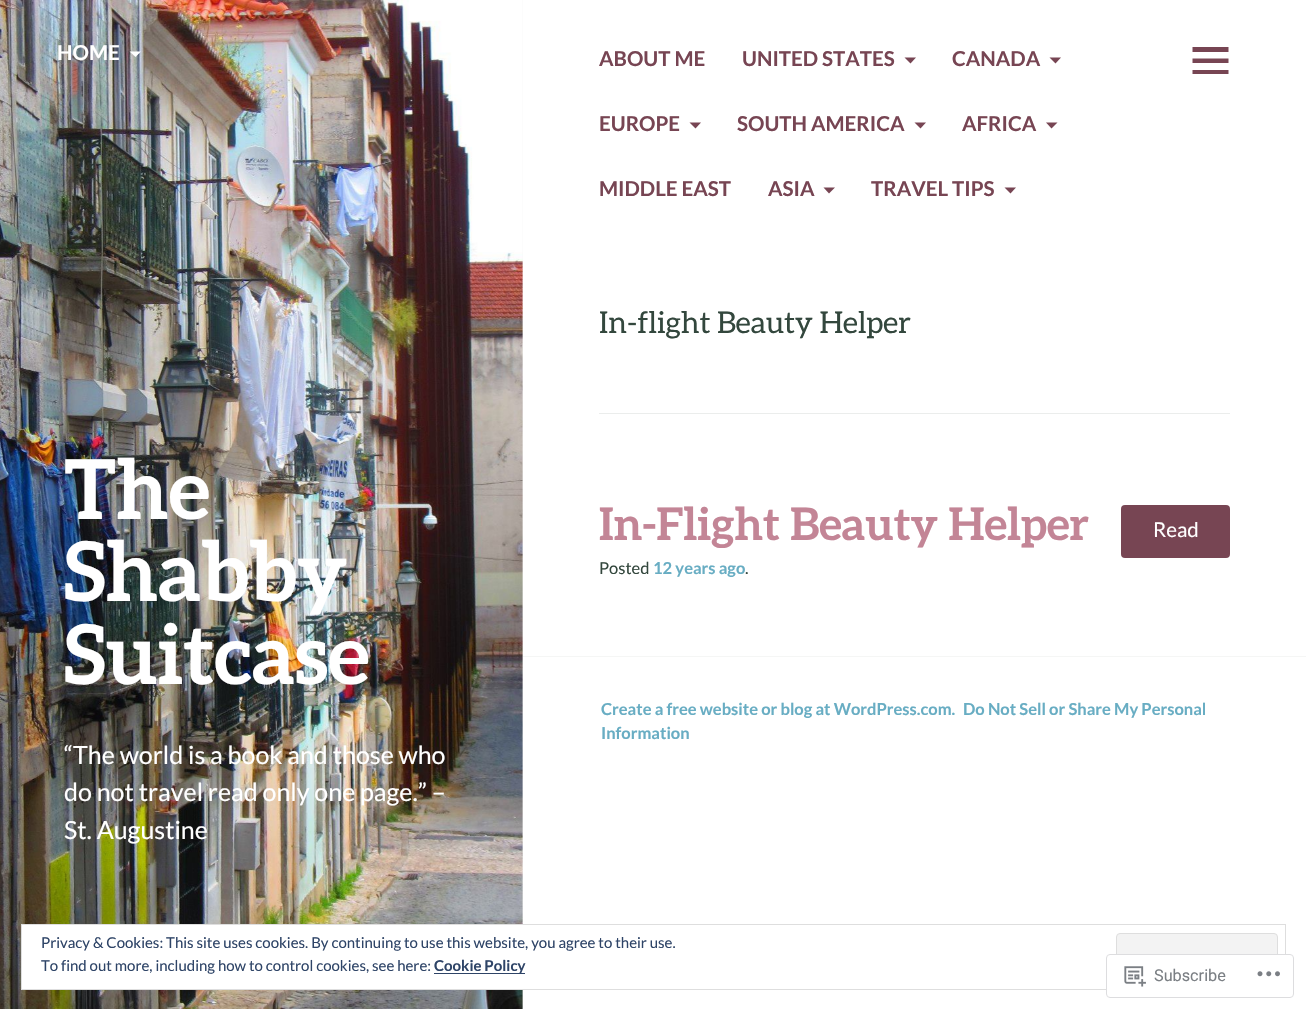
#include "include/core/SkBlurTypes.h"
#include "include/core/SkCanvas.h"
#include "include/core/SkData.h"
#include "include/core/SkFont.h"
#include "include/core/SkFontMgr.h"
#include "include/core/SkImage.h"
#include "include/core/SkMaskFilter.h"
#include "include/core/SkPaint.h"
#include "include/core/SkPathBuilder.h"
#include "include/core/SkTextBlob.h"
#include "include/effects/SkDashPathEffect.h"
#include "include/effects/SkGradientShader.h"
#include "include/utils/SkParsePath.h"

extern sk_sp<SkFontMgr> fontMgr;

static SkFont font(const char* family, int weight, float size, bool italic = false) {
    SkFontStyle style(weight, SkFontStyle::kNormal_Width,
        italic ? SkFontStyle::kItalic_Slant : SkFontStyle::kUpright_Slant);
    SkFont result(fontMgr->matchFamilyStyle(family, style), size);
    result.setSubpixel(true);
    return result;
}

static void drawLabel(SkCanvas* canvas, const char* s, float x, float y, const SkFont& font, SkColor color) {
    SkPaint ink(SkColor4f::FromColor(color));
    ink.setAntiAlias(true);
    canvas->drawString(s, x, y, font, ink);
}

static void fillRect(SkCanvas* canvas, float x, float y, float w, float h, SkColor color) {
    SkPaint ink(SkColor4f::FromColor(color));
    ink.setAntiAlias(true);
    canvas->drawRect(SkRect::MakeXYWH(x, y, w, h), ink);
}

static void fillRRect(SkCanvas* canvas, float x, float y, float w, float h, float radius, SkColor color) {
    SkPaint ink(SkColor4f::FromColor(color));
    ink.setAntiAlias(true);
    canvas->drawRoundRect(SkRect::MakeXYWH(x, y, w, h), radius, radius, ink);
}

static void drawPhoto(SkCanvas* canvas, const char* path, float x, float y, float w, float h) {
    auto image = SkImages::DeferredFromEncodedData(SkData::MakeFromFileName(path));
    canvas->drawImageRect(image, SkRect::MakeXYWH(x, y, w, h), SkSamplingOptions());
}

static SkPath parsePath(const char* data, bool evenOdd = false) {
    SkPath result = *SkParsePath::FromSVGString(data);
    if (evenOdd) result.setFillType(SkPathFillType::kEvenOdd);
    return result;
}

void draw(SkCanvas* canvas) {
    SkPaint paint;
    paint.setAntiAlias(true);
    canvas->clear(0xFFFFFFFF);
    fillRect(canvas, 522, 0, 1, 1009, 0xFFF6F7F6);
    drawPhoto(canvas, "assets/img1.png", 0, 0, 523, 1009);
    SkFont font1 = font("Lato", 700, 20.5f);
    drawLabel(canvas, "HOME", 57, 60, font1, 0xFFFFFFFF);
    paint.setColor(0xFFFFFFFF);
    canvas->drawPath(parsePath("M129.5 51.5H141L135.5 57Z"), paint);
    drawLabel(canvas, "ABOUT ME", 599, 66, font1, 0xFF774553);
    drawLabel(canvas, "UNITED STATES", 742, 66, font1, 0xFF774553);
    paint.setColor(0xFF774553);
    canvas->drawPath(parsePath("M904.5 57.5H916L910.5 63.5Z"), paint);
    drawLabel(canvas, "CANADA", 952, 66, font1, 0xFF774553);
    canvas->drawPath(parsePath("M1049.5 57.5H1061L1055.5 63.5Z"), paint);
    drawLabel(canvas, "EUROPE", 599, 131, font1, 0xFF774553);
    canvas->drawPath(parsePath("M689.5 122.5H701L695.5 128.5Z"), paint);
    drawLabel(canvas, "SOUTH AMERICA", 737, 131, font1, 0xFF774553);
    canvas->drawPath(parsePath("M914.5 122.5H926L920.5 128.5Z"), paint);
    drawLabel(canvas, "AFRICA", 962, 131, font1, 0xFF774553);
    canvas->drawPath(parsePath("M1046 122.5H1057.5L1051.5 128.5Z"), paint);
    drawLabel(canvas, "MIDDLE EAST", 599, 196, font1, 0xFF774553);
    drawLabel(canvas, "ASIA", 768, 196, font1, 0xFF774553);
    canvas->drawPath(parsePath("M823.5 187.5H835L829 193.5Z"), paint);
    drawLabel(canvas, "TRAVEL TIPS", 871, 196, font1, 0xFF774553);
    canvas->drawPath(parsePath("M1004.5 187.5H1016L1010.5 193.5Z"), paint);
    canvas->drawPath(parsePath("M1192.5 74V70H1228.5V74ZM1192.5 47H1228.5V52H1192.5ZM1192.5 63V58.5H1228.5V63Z"), paint);
    SkFont font2 = font("Aleo", 400, 30);
    drawLabel(canvas, "In-flight Beauty Helper", 599, 333, font2, 0xFF33473D);
    fillRect(canvas, 599, 413, 631, 1, 0xFFEBEDEC);
    SkFont font3 = font("Aleo", 700, 45);
    drawLabel(canvas, "In-Flight Beauty Helper", 599, 540, font3, 0xFFC38596);
    fillRRect(canvas, 1121, 505, 109, 53, 4, 0xFF774553);
    SkFont font4 = font("Lato", 400, 20.5f);
    drawLabel(canvas, "Read", 1153, 537, font4, 0xFFFFFFFF);
    SkFont font5 = font("Lato", 400, 16.5f);
    drawLabel(canvas, "Posted", 599, 574, font5, 0xFF33473D);
    SkFont font6 = font("Lato", 700, 16.5f);
    drawLabel(canvas, "12 years ago", 653, 574, font6, 0xFF68ADC3);
    drawLabel(canvas, ".", 745, 574, font5, 0xFF33473D);
    SkFont font7 = font("Aleo", 700, 82.5f);
    drawLabel(canvas, "The", 64, 519, font7, 0xFFFFFFFF);
    drawLabel(canvas, "Shabby", 64, 601, font7, 0xFFFFFFFF);
    drawLabel(canvas, "Suitcase", 64, 684, font7, 0xFFFFFFFF);
    SkFont font8 = font("Lato", 400, 25);
    drawLabel(canvas, "“The world is a book and those who", 64, 764, font8, 0xFFFFFFFF);
    drawLabel(canvas, "do not travel read only one page.” –", 64, 801, font8, 0xFFFFFFFF);
    drawLabel(canvas, "St. Augustine", 64, 839, font8, 0xFFFFFFFF);
    fillRect(canvas, 523, 656, 783, 1, 0xFFF5F6F5);
    drawLabel(canvas, "Create a free website or blog at WordPress.com.", 601, 715, font6, 0xFF68ADC3);
    drawLabel(canvas, "Do Not Sell or Share My Personal", 963, 715, font6, 0xFF68ADC3);
    drawLabel(canvas, "Information", 601, 739, font6, 0xFF68ADC3);
    fillRect(canvas, 22, 925, 501, 64, 0xFFFFFFFF);
    paint.setStroke(true);
    paint.setStrokeWidth(1);
    paint.setColor(0xFFDEDEDE);
    canvas->drawRect(SkRect::MakeXYWH(21.5f, 924.5f, 1264, 65), paint);
    SkFont font9 = font("Lato", 400, 15);
    drawLabel(canvas, "Privacy & Cookies: This site uses cookies. By continuing to use this website, you agree to their use.", 41, 948, font9, 0xFF2E4467);
    paint.setStroke(false);
    paint.setColor(0xFFF3F3F3);
    canvas->drawRoundRect(SkRect::MakeXYWH(1116.5f, 933.5f, 161, 47), 3.5f, 3.5f, paint);
    paint.setStroke(true);
    paint.setColor(0xFFDEDEDE);
    canvas->drawRoundRect(SkRect::MakeXYWH(1116.5f, 933.5f, 161, 47), 3.5f, 3.5f, paint);
    drawLabel(canvas, "To find out more, including how to control cookies, see here:", 41, 971, font9, 0xFF2E4467);
    fillRect(canvas, 434, 973, 91, 1, 0xFF2E4467);
    SkFont font10 = font("Lato", 700, 15);
    drawLabel(canvas, "Cookie Policy", 434, 971, font10, 0xFF2E4467);
    fillRRect(canvas, 1106, 954, 188, 44, 4, 0xFAFFFFFF);
    paint.setColor(0xFADCDCDE);
    canvas->drawRoundRect(SkRect::MakeXYWH(1106.5f, 954.5f, 187, 43), 3.5f, 3.5f, paint);
    drawPhoto(canvas, "assets/img2.png", 1124, 966, 22, 21);
    SkFont font11 = font("Roboto", 400, 16.25f);
    drawLabel(canvas, "Subscribe", 1154, 981, font11, 0xFF7B7F84);
    drawPhoto(canvas, "assets/img3.png", 1257, 971, 23, 6);
}
